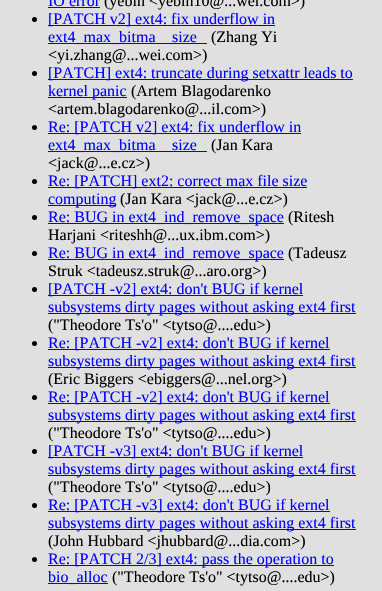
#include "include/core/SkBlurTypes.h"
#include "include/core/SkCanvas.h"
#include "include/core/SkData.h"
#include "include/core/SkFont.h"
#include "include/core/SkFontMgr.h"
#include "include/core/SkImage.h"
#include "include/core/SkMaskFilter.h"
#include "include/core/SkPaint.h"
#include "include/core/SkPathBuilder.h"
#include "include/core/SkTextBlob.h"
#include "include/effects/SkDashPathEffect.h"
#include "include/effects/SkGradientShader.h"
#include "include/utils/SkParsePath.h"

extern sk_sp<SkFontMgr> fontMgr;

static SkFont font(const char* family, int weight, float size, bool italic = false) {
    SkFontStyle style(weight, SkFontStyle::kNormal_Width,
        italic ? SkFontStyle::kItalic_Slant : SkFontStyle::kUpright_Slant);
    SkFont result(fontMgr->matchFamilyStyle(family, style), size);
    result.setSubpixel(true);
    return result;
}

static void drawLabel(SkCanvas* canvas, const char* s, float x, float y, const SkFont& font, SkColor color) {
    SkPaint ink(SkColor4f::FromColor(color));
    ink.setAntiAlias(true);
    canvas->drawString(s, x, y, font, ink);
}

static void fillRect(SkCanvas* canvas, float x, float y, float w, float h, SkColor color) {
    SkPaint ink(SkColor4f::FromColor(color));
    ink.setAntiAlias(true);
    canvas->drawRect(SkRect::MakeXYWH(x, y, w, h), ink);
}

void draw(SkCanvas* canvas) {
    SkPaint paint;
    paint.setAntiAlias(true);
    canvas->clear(0xFFE0E0E0);
    SkFont font1 = font("Liberation Serif", 400, 16);
    drawLabel(canvas, "IO error", 48, 6, font1, 0xFF0000FF);
    fillRect(canvas, 48, 7, 52, 1, 0xFF0000FF);
    drawLabel(canvas, "(yebin <yebin10@...wei.com>)", 104, 6, font1, 0xFF000000);
    paint.setColor(0xFF000000);
    canvas->drawCircle(34.5f, 19.5f, 2.5f, paint);
    fillRect(canvas, 48, 25, 227, 1, 0xFF0000FF);
    drawLabel(canvas, "[PATCH v2] ext4: fix underflow in", 48, 24, font1, 0xFF0000FF);
    fillRect(canvas, 48, 43, 159, 1, 0xFF0000FF);
    drawLabel(canvas, "ext4_max_bitma", 48, 42, font1, 0xFF0000FF);
    drawLabel(canvas, "size", 172, 42, font1, 0xFF0000FF);
    drawLabel(canvas, "(Zhang Yi", 211, 42, font1, 0xFF000000);
    drawLabel(canvas, "<yi.zhang@...wei.com>)", 48, 60, font1, 0xFF000000);
    canvas->drawCircle(34.5f, 73.5f, 2.5f, paint);
    fillRect(canvas, 48, 79, 305, 1, 0xFF0000FF);
    drawLabel(canvas, "[PATCH] ext4: truncate during setxattr leads to", 48, 78, font1, 0xFF0000FF);
    fillRect(canvas, 48, 97, 79, 1, 0xFF0000FF);
    drawLabel(canvas, "kernel panic", 48, 96, font1, 0xFF0000FF);
    drawLabel(canvas, "(Artem Blagodarenko", 131, 96, font1, 0xFF000000);
    drawLabel(canvas, "<artem.blagodarenko@...il.com>)", 48, 114, font1, 0xFF000000);
    canvas->drawCircle(34.5f, 127.5f, 2.5f, paint);
    fillRect(canvas, 48, 133, 253, 1, 0xFF0000FF);
    drawLabel(canvas, "Re: [PATCH v2] ext4: fix underflow in", 48, 132, font1, 0xFF0000FF);
    fillRect(canvas, 48, 151, 159, 1, 0xFF0000FF);
    drawLabel(canvas, "ext4_max_bitma", 48, 150, font1, 0xFF0000FF);
    drawLabel(canvas, "size", 172, 150, font1, 0xFF0000FF);
    drawLabel(canvas, "(Jan Kara", 211, 150, font1, 0xFF000000);
    drawLabel(canvas, "<jack@...e.cz>)", 48, 168, font1, 0xFF000000);
    canvas->drawCircle(34.5f, 181.5f, 2.5f, paint);
    fillRect(canvas, 48, 187, 259, 1, 0xFF0000FF);
    drawLabel(canvas, "Re: [PATCH] ext2: correct max file size", 48, 186, font1, 0xFF0000FF);
    fillRect(canvas, 48, 205, 68, 1, 0xFF0000FF);
    drawLabel(canvas, "computing", 48, 204, font1, 0xFF0000FF);
    drawLabel(canvas, "(Jan Kara <jack@...e.cz>)", 120, 204, font1, 0xFF000000);
    canvas->drawCircle(34.5f, 217.5f, 2.5f, paint);
    fillRect(canvas, 48, 223, 236, 1, 0xFF0000FF);
    drawLabel(canvas, "Re: BUG in ext4_ind_remove_space", 48, 222, font1, 0xFF0000FF);
    drawLabel(canvas, "(Ritesh", 288, 222, font1, 0xFF000000);
    drawLabel(canvas, "Harjani <riteshh@...ux.ibm.com>)", 48, 240, font1, 0xFF000000);
    canvas->drawCircle(34.5f, 253.5f, 2.5f, paint);
    fillRect(canvas, 48, 259, 236, 1, 0xFF0000FF);
    drawLabel(canvas, "Re: BUG in ext4_ind_remove_space", 48, 258, font1, 0xFF0000FF);
    drawLabel(canvas, "(Tadeusz", 288, 258, font1, 0xFF000000);
    drawLabel(canvas, "Struk <tadeusz.struk@...aro.org>)", 48, 276, font1, 0xFF000000);
    canvas->drawCircle(34.5f, 289.5f, 2.5f, paint);
    fillRect(canvas, 48, 295, 255, 1, 0xFF0000FF);
    drawLabel(canvas, "[PATCH -v2] ext4: don't BUG if kernel", 48, 294, font1, 0xFF0000FF);
    fillRect(canvas, 48, 313, 308, 1, 0xFF0000FF);
    drawLabel(canvas, "subsystems dirty pages without asking ext4 first", 48, 312, font1, 0xFF0000FF);
    drawLabel(canvas, "(\"Theodore Ts'o\" <tytso@....edu>)", 48, 330, font1, 0xFF000000);
    canvas->drawCircle(34.5f, 343.5f, 2.5f, paint);
    fillRect(canvas, 48, 349, 282, 1, 0xFF0000FF);
    drawLabel(canvas, "Re: [PATCH -v2] ext4: don't BUG if kernel", 48, 348, font1, 0xFF0000FF);
    fillRect(canvas, 48, 367, 308, 1, 0xFF0000FF);
    drawLabel(canvas, "subsystems dirty pages without asking ext4 first", 48, 366, font1, 0xFF0000FF);
    drawLabel(canvas, "(Eric Biggers <ebiggers@...nel.org>)", 48, 384, font1, 0xFF000000);
    canvas->drawCircle(34.5f, 397.5f, 2.5f, paint);
    fillRect(canvas, 48, 403, 282, 1, 0xFF0000FF);
    drawLabel(canvas, "Re: [PATCH -v2] ext4: don't BUG if kernel", 48, 402, font1, 0xFF0000FF);
    fillRect(canvas, 48, 421, 308, 1, 0xFF0000FF);
    drawLabel(canvas, "subsystems dirty pages without asking ext4 first", 48, 420, font1, 0xFF0000FF);
    drawLabel(canvas, "(\"Theodore Ts'o\" <tytso@....edu>)", 48, 438, font1, 0xFF000000);
    canvas->drawCircle(34.5f, 451.5f, 2.5f, paint);
    fillRect(canvas, 48, 457, 255, 1, 0xFF0000FF);
    drawLabel(canvas, "[PATCH -v3] ext4: don't BUG if kernel", 48, 456, font1, 0xFF0000FF);
    fillRect(canvas, 48, 475, 308, 1, 0xFF0000FF);
    drawLabel(canvas, "subsystems dirty pages without asking ext4 first", 48, 474, font1, 0xFF0000FF);
    drawLabel(canvas, "(\"Theodore Ts'o\" <tytso@....edu>)", 48, 492, font1, 0xFF000000);
    canvas->drawCircle(34.5f, 505.5f, 2.5f, paint);
    fillRect(canvas, 48, 511, 282, 1, 0xFF0000FF);
    drawLabel(canvas, "Re: [PATCH -v3] ext4: don't BUG if kernel", 48, 510, font1, 0xFF0000FF);
    fillRect(canvas, 48, 529, 308, 1, 0xFF0000FF);
    drawLabel(canvas, "subsystems dirty pages without asking ext4 first", 48, 528, font1, 0xFF0000FF);
    drawLabel(canvas, "(John Hubbard <jhubbard@...dia.com>)", 48, 546, font1, 0xFF000000);
    canvas->drawCircle(34.5f, 559.5f, 2.5f, paint);
    fillRect(canvas, 48, 565, 286, 1, 0xFF0000FF);
    drawLabel(canvas, "Re: [PATCH 2/3] ext4: pass the operation to", 48, 564, font1, 0xFF0000FF);
    fillRect(canvas, 48, 583, 60, 1, 0xFF0000FF);
    drawLabel(canvas, "bio_alloc", 48, 582, font1, 0xFF0000FF);
    drawLabel(canvas, "(\"Theodore Ts'o\" <tytso@....edu>)", 112, 582, font1, 0xFF000000);
}
